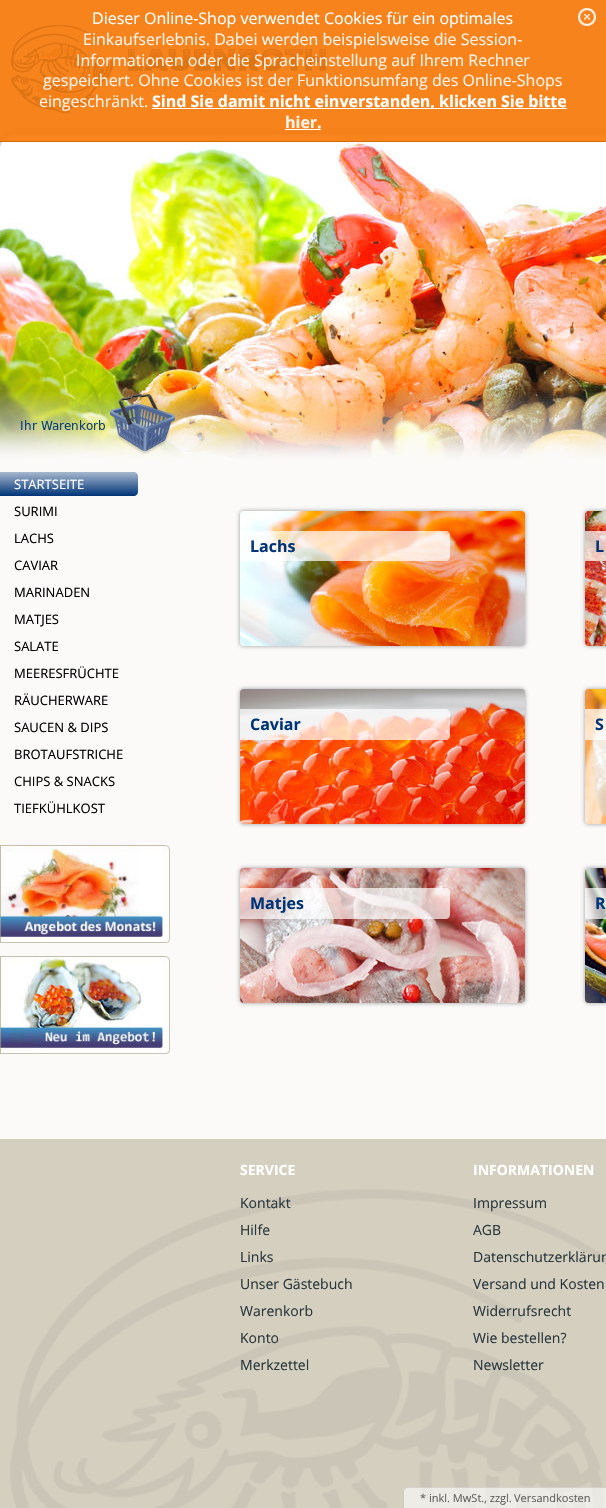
#include "include/core/SkBlurTypes.h"
#include "include/core/SkCanvas.h"
#include "include/core/SkData.h"
#include "include/core/SkFont.h"
#include "include/core/SkFontMgr.h"
#include "include/core/SkImage.h"
#include "include/core/SkMaskFilter.h"
#include "include/core/SkPaint.h"
#include "include/core/SkPathBuilder.h"
#include "include/core/SkTextBlob.h"
#include "include/effects/SkDashPathEffect.h"
#include "include/effects/SkGradientShader.h"
#include "include/utils/SkParsePath.h"

extern sk_sp<SkFontMgr> fontMgr;

static SkFont font(const char* family, int weight, float size, bool italic = false) {
    SkFontStyle style(weight, SkFontStyle::kNormal_Width,
        italic ? SkFontStyle::kItalic_Slant : SkFontStyle::kUpright_Slant);
    SkFont result(fontMgr->matchFamilyStyle(family, style), size);
    result.setSubpixel(true);
    return result;
}

static void drawLabel(SkCanvas* canvas, const char* s, float x, float y, const SkFont& font, SkColor color) {
    SkPaint ink(SkColor4f::FromColor(color));
    ink.setAntiAlias(true);
    canvas->drawString(s, x, y, font, ink);
}

static void fillRect(SkCanvas* canvas, float x, float y, float w, float h, SkColor color) {
    SkPaint ink(SkColor4f::FromColor(color));
    ink.setAntiAlias(true);
    canvas->drawRect(SkRect::MakeXYWH(x, y, w, h), ink);
}

static void fillRRect(SkCanvas* canvas, float x, float y, float w, float h, float radius, SkColor color) {
    SkPaint ink(SkColor4f::FromColor(color));
    ink.setAntiAlias(true);
    canvas->drawRoundRect(SkRect::MakeXYWH(x, y, w, h), radius, radius, ink);
}

static void drawPhoto(SkCanvas* canvas, const char* path, float x, float y, float w, float h) {
    auto image = SkImages::DeferredFromEncodedData(SkData::MakeFromFileName(path));
    canvas->drawImageRect(image, SkRect::MakeXYWH(x, y, w, h), SkSamplingOptions());
}

static SkPath parsePath(const char* data, bool evenOdd = false) {
    SkPath result = *SkParsePath::FromSVGString(data);
    if (evenOdd) result.setFillType(SkPathFillType::kEvenOdd);
    return result;
}

void draw(SkCanvas* canvas) {
    SkPaint paint;
    paint.setAntiAlias(true);
    canvas->clear(0xFFEDF3F7);
    drawPhoto(canvas, "assets/img2.png", 11, 25, 315, 89);
    paint.setColor(0xFF999999);
    paint.setMaskFilter(SkMaskFilter::MakeBlur(kNormal_SkBlurStyle, 5));
    canvas->drawRoundRect(SkRect::MakeXYWH(0, 134, 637, 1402), 16, 16, paint);
    paint.setMaskFilter(nullptr);
    fillRRect(canvas, 0, 134, 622, 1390, 16, 0xFFFBFAF9);
    paint.setColor(0xFFFFFFFF);
    canvas->drawPath(parsePath("M16 134H606C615 134 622 141 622 150V464H0V150C0 141 7 134 16 134Z"), paint);
    drawPhoto(canvas, "assets/img3.png", 0, 134, 606, 326);
    fillRect(canvas, 0, 0, 606, 142, 0xE6F77704);
    fillRect(canvas, 0, 141, 606, 1, 0xE6D36706);
    SkFont font1 = font("Open Sans", 400, 16);
    drawLabel(canvas, "Dieser Online-Shop verwendet Cookies für ein optimales", 92, 24, font1, 0xFFFFFFFF);
    drawPhoto(canvas, "assets/img1.png", 578, 8, 18, 18);
    drawLabel(canvas, "Einkaufserlebnis. Dabei werden beispielsweise die Session-", 83, 45, font1, 0xFFFEF3E8);
    drawLabel(canvas, "Informationen oder die Spracheinstellung auf Ihrem Rechner", 76, 66, font1, 0xFFFEF3E8);
    drawLabel(canvas, "gespeichert. Ohne Cookies ist der Funktionsumfang des Online-Shops", 43, 86, font1, 0xFFFEF3E8);
    drawLabel(canvas, "eingeschränkt.", 39, 107, font1, 0xFFFEF3E8);
    fillRect(canvas, 152, 108, 415, 1, 0xFFFDFEFE);
    SkFont font2 = font("Open Sans", 700, 16);
    drawLabel(canvas, "Sind Sie damit nicht einverstanden, klicken Sie bitte", 152, 107, font2, 0xFFFFFFFF);
    drawLabel(canvas, "hier.", 285, 128, font2, 0xFFFEF3E8);
    fillRect(canvas, 285, 129, 36, 1, 0xFFFCFCFC);
    drawPhoto(canvas, "assets/img4.png", 0, 392, 606, 72);
    drawPhoto(canvas, "assets/img5.png", 21, 394, 154, 60);
    {
        const SkColor colors[] = {0xFFA7B8CE, 0xFF003478};
        const float stops[] = {0, 1};
        const SkPoint ends[] = {{69, 472}, {69, 496}};
        paint.setShader(SkGradientShader::MakeLinear(ends, colors, stops, 2, SkTileMode::kClamp));
        paint.setAlpha(255);
    }
    canvas->drawPath(parsePath("M0 472H134C136 472 138 474 138 476V492C138 494 136 496 134 496H0Z"), paint);
    SkFont font3 = font("Open Sans", 400, 13);
    drawLabel(canvas, "STARTSEITE", 14, 489, font3, 0xFFFFFFFF);
    drawLabel(canvas, "SURIMI", 14, 516, font3, 0xFF000000);
    drawLabel(canvas, "LACHS", 14, 543, font3, 0xFF000000);
    drawLabel(canvas, "CAVIAR", 14, 570, font3, 0xFF000000);
    drawLabel(canvas, "MARINADEN", 14, 597, font3, 0xFF000000);
    drawLabel(canvas, "MATJES", 14, 624, font3, 0xFF000000);
    drawLabel(canvas, "SALATE", 14, 651, font3, 0xFF000000);
    drawLabel(canvas, "MEERESFRÜCHTE", 14, 678, font3, 0xFF000000);
    drawLabel(canvas, "RÄUCHERWARE", 14, 705, font3, 0xFF000000);
    drawLabel(canvas, "SAUCEN & DIPS", 14, 732, font3, 0xFF000000);
    drawLabel(canvas, "BROTAUFSTRICHE", 14, 759, font3, 0xFF000000);
    drawLabel(canvas, "CHIPS & SNACKS", 14, 786, font3, 0xFF000000);
    drawLabel(canvas, "TIEFKÜHLKOST", 14, 813, font3, 0xFF000000);
    drawPhoto(canvas, "assets/img6.png", 0, 845, 170, 98);
    drawPhoto(canvas, "assets/img7.png", 0, 956, 170, 98);
    paint.setShader(nullptr);
    paint.setColor(0xFF999999);
    paint.setMaskFilter(SkMaskFilter::MakeBlur(kNormal_SkBlurStyle, 2));
    canvas->drawRoundRect(SkRect::MakeXYWH(240, 511, 285, 135), 4, 4, paint);
    paint.setMaskFilter(nullptr);
    drawPhoto(canvas, "assets/img8.png", 240, 511, 285, 135);
    paint.setColor(0xB3FFFFFF);
    canvas->drawPath(parsePath("M240 531H446C448 531 450 533 450 535V557C450 559 448 561 446 561H240Z"), paint);
    drawLabel(canvas, "Lachs", 250, 552, font2, 0xFF003478);
    paint.setColor(0xFF999999);
    paint.setMaskFilter(SkMaskFilter::MakeBlur(kNormal_SkBlurStyle, 2));
    canvas->drawRoundRect(SkRect::MakeXYWH(585, 511, 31, 135), 4, 4, paint);
    paint.setMaskFilter(nullptr);
    drawPhoto(canvas, "assets/img9.png", 585, 511, 21, 135);
    fillRect(canvas, 585, 531, 21, 30, 0xB3FFFFFF);
    drawLabel(canvas, "L", 595, 552, font2, 0xFF003478);
    paint.setMaskFilter(SkMaskFilter::MakeBlur(kNormal_SkBlurStyle, 2));
    canvas->drawRoundRect(SkRect::MakeXYWH(240, 689, 285, 135), 4, 4, paint);
    paint.setMaskFilter(nullptr);
    drawPhoto(canvas, "assets/img10.png", 240, 689, 285, 135);
    paint.setColor(0xB3FFFFFF);
    canvas->drawPath(parsePath("M240 709H446C448 709 450 711 450 713V736C450 738 448 740 446 740H240Z"), paint);
    drawLabel(canvas, "Caviar", 250, 730, font2, 0xFF003478);
    paint.setColor(0xFF999999);
    paint.setMaskFilter(SkMaskFilter::MakeBlur(kNormal_SkBlurStyle, 2));
    canvas->drawRoundRect(SkRect::MakeXYWH(585, 689, 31, 135), 4, 4, paint);
    paint.setMaskFilter(nullptr);
    drawPhoto(canvas, "assets/img11.png", 585, 689, 21, 135);
    fillRect(canvas, 585, 709, 21, 31, 0xB3FFFFFF);
    drawLabel(canvas, "S", 595, 730, font2, 0xFF003478);
    paint.setMaskFilter(SkMaskFilter::MakeBlur(kNormal_SkBlurStyle, 2));
    canvas->drawRoundRect(SkRect::MakeXYWH(240, 868, 285, 135), 4, 4, paint);
    paint.setMaskFilter(nullptr);
    drawPhoto(canvas, "assets/img12.png", 240, 868, 285, 135);
    paint.setColor(0xB3FFFFFF);
    canvas->drawPath(parsePath("M240 888H446C448 888 450 890 450 892V915C450 917 448 919 446 919H240Z"), paint);
    drawLabel(canvas, "Matjes", 250, 909, font2, 0xFF003478);
    paint.setColor(0xFF999999);
    paint.setMaskFilter(SkMaskFilter::MakeBlur(kNormal_SkBlurStyle, 2));
    canvas->drawRoundRect(SkRect::MakeXYWH(585, 868, 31, 135), 4, 4, paint);
    paint.setMaskFilter(nullptr);
    drawPhoto(canvas, "assets/img13.png", 585, 868, 21, 135);
    fillRect(canvas, 585, 888, 21, 31, 0xB3FFFFFF);
    drawLabel(canvas, "R", 595, 909, font2, 0xFF003478);
    fillRect(canvas, 0, 1139, 606, 369, 0xFFD4CFBF);
    drawPhoto(canvas, "assets/img14.png", 10, 1189, 596, 319);
    SkFont font4 = font("Open Sans", 700, 14);
    drawLabel(canvas, "SERVICE", 240, 1175, font4, 0xFFFFFFFF);
    SkFont font5 = font("Open Sans", 400, 14);
    drawLabel(canvas, "Kontakt", 240, 1208, font5, 0xFF29373C);
    drawLabel(canvas, "Hilfe", 240, 1235, font5, 0xFF29373C);
    drawLabel(canvas, "Links", 240, 1262, font5, 0xFF29373C);
    drawLabel(canvas, "Unser Gästebuch", 240, 1289, font5, 0xFF29373C);
    drawLabel(canvas, "Warenkorb", 240, 1316, font5, 0xFF29373C);
    drawLabel(canvas, "Konto", 240, 1343, font5, 0xFF29373C);
    drawLabel(canvas, "Merkzettel", 240, 1370, font5, 0xFF29373C);
    drawLabel(canvas, "INFORMATIONEN", 473, 1175, font4, 0xFFFFFFFF);
    drawLabel(canvas, "Impressum", 473, 1208, font5, 0xFF29373C);
    drawLabel(canvas, "AGB", 473, 1235, font5, 0xFF29373C);
    drawLabel(canvas, "Datenschutzerklärun", 473, 1262, font5, 0xFF29373C);
    drawLabel(canvas, "Versand und Kosten", 473, 1289, font5, 0xFF29373C);
    drawLabel(canvas, "Widerrufsrecht", 473, 1316, font5, 0xFF29373C);
    drawLabel(canvas, "Wie bestellen?", 473, 1343, font5, 0xFF29373C);
    drawLabel(canvas, "Newsletter", 473, 1370, font5, 0xFF29373C);
    drawPhoto(canvas, "assets/img15.png", 403, 1487, 203, 21);
    SkFont font6 = font("Open Sans", 400, 11);
    drawLabel(canvas, "*", 420, 1502, font6, 0xFF5F5E5C);
    drawLabel(canvas, "inkl. MwSt., zzgl.", 429, 1502, font6, 0xFF5F5E5C);
    drawLabel(canvas, "Versandkosten", 514, 1502, font6, 0xFF5F5E5C);
}
